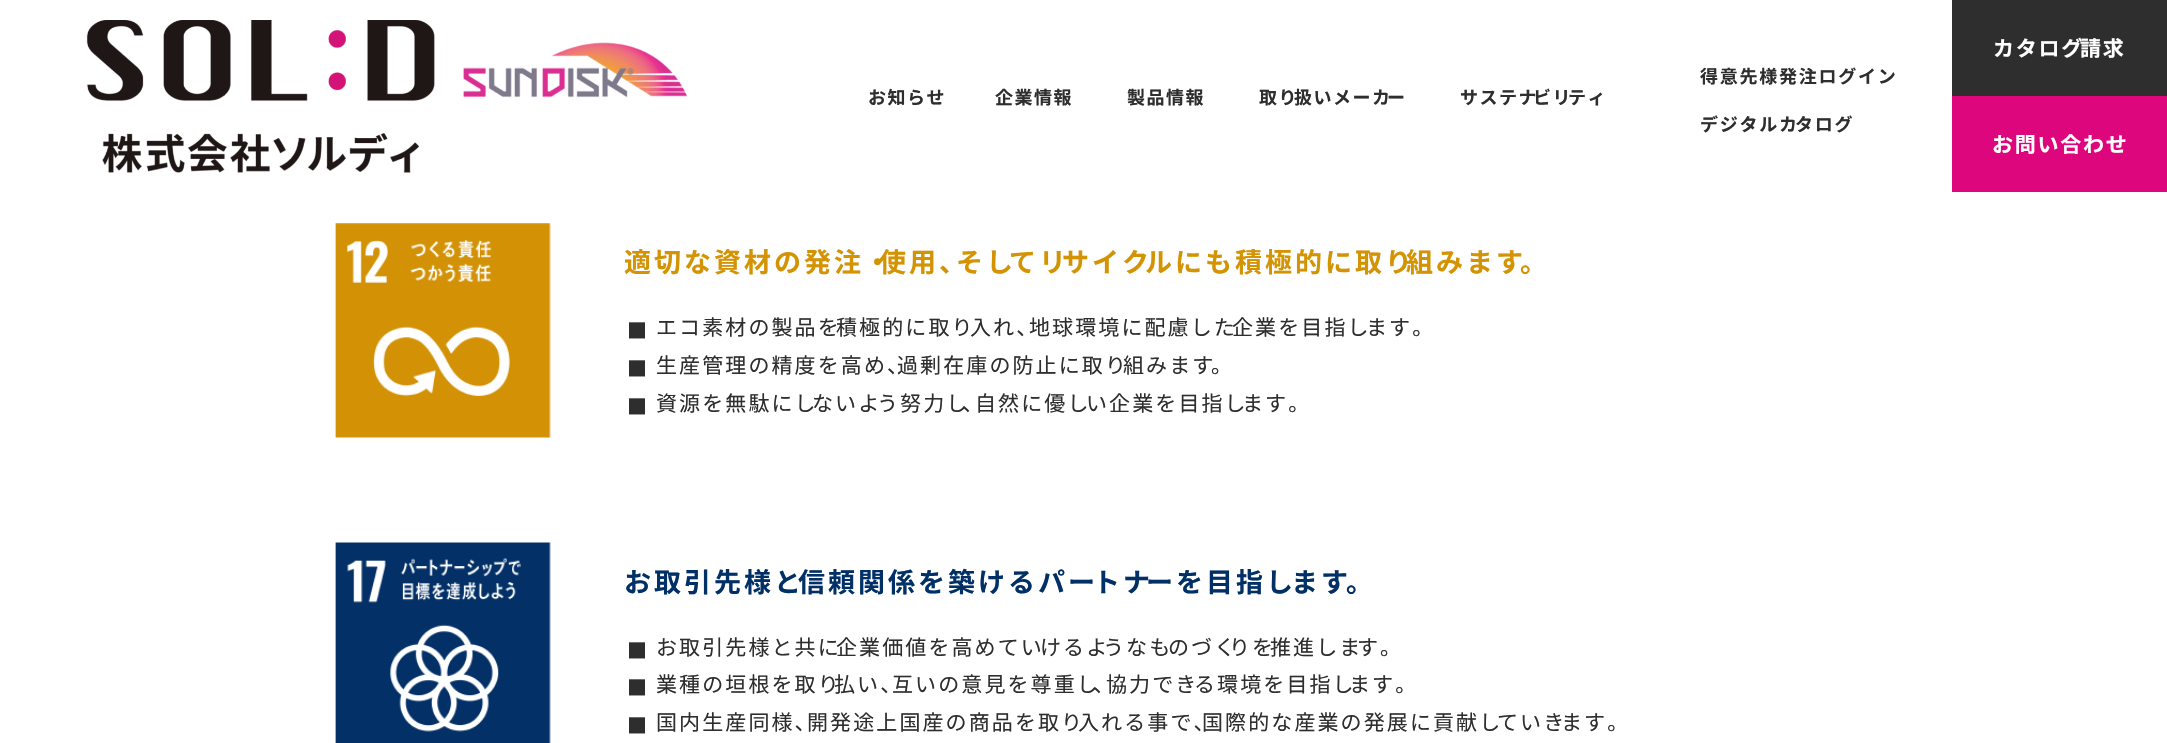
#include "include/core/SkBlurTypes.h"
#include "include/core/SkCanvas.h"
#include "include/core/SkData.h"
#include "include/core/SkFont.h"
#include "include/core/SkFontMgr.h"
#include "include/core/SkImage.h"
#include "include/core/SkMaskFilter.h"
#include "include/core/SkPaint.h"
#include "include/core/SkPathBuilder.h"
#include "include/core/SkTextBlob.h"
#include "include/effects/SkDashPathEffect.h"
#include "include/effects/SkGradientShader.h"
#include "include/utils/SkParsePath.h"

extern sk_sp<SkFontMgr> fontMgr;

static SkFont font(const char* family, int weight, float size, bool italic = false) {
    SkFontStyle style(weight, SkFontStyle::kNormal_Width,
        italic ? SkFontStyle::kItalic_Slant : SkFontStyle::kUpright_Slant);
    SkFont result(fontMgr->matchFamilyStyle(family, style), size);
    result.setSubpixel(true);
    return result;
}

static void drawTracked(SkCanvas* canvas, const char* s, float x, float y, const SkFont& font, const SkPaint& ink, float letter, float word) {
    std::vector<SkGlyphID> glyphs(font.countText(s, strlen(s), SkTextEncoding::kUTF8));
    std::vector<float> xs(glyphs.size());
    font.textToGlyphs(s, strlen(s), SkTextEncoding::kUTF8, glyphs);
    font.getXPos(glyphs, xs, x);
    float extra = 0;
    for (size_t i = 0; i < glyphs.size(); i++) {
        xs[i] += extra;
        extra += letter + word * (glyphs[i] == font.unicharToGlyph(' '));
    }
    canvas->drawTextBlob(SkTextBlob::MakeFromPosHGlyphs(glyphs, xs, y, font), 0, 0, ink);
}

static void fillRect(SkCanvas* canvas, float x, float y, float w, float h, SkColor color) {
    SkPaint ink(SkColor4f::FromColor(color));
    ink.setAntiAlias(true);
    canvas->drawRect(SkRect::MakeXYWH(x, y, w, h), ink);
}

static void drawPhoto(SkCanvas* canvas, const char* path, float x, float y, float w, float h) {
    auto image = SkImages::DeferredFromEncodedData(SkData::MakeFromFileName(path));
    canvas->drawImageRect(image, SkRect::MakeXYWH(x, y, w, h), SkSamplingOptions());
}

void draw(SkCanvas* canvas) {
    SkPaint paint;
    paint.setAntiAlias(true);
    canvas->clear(0xFFFFFFFF);
    drawPhoto(canvas, "assets/img1.png", 86, 20, 602, 153);
    SkFont font1 = font("Noto Sans JP", 700, 18);
    paint.setColor(0xFF2E2E2E);
    drawTracked(canvas, "お知らせ", 868, 104, font1, paint, 1.5f, 0);
    drawTracked(canvas, "企業情報", 995, 104, font1, paint, 1.5f, 0);
    drawTracked(canvas, "製品情報", 1127, 104, font1, paint, 1.5f, 0);
    drawTracked(canvas, "取り", 1259, 104, font1, paint, 1.5f, 0);
    drawTracked(canvas, "扱いメーカ", 1294, 104, font1, paint, 1.5f, 0);
    drawTracked(canvas, "ー", 1387, 104, font1, paint, 1.5f, 0);
    drawTracked(canvas, "サステナ", 1460, 104, font1, paint, 1.5f, 0);
    drawTracked(canvas, "ビリ", 1533, 104, font1, paint, 1.5f, 0);
    drawTracked(canvas, "ティ", 1568, 104, font1, paint, 1.5f, 0);
    drawTracked(canvas, "得意先様発注ログイン", 1700, 83, font1, paint, 1.75f, 0);
    drawTracked(canvas, "デジタルカ", 1700, 131, font1, paint, 1.75f, 0);
    drawTracked(canvas, "タログ", 1795, 131, font1, paint, 1.75f, 0);
    fillRect(canvas, 1952, 0, 215, 96, 0xFF2E2E2E);
    SkFont font2 = font("Noto Sans JP", 700, 21);
    paint.setColor(0xFFFFFFFF);
    drawTracked(canvas, "カタログ", 1993, 56, font2, paint, 1.75f, 0);
    drawTracked(canvas, "請求", 2080, 56, font2, paint, 1.75f, 0);
    fillRect(canvas, 1952, 96, 215, 96, 0xFFDD067D);
    drawTracked(canvas, "お問い合わせ", 1992, 152, font2, paint, 1.75f, 0);
    drawPhoto(canvas, "assets/img2.png", 335, 223, 216, 215);
    SkFont font3 = font("Noto Sans JP", 700, 27);
    paint.setColor(0xFFD39303);
    drawTracked(canvas, "適切な資材の発注・", 624, 272, font3, paint, 3, 0);
    drawTracked(canvas, "使用、", 879, 272, font3, paint, 3, 0);
    drawTracked(canvas, "そし", 956, 272, font3, paint, 3, 0);
    drawTracked(canvas, "てリ", 1009, 272, font3, paint, 3, 0);
    drawTracked(canvas, "サイク", 1062, 272, font3, paint, 3, 0);
    drawTracked(canvas, "ルにも積極的に取り", 1145, 272, font3, paint, 3, 0);
    drawTracked(canvas, "組みます", 1406, 272, font3, paint, 3, 0);
    drawTracked(canvas, "。", 1520, 272, font3, paint, 3, 0);
    SkFont font4 = font("Noto Sans JP", 400, 20);
    paint.setColor(0xFF2E2E2E);
    drawTracked(canvas, "■", 627, 338, font4, paint, 2.1f, 0);
    SkFont font5 = font("Noto Sans JP", 400, 21);
    drawTracked(canvas, "エコ素材の製品を", 656, 335, font5, paint, 2.1f, 0);
    drawTracked(canvas, "積極的に取り", 836, 335, font5, paint, 2.1f, 0);
    drawTracked(canvas, "入れ、", 970, 335, font5, paint, 2.1f, 0);
    drawTracked(canvas, "地球環境に配慮した", 1029, 335, font5, paint, 2.1f, 0);
    drawTracked(canvas, "企業を目指し", 1232, 335, font5, paint, 2.1f, 0);
    drawTracked(canvas, "ます。", 1366, 335, font5, paint, 2.1f, 0);
    drawTracked(canvas, "■", 627, 376, font4, paint, 2.1f, 0);
    drawTracked(canvas, "生産管理の精度を高め、", 656, 373, font5, paint, 2.1f, 0);
    drawTracked(canvas, "過剰在庫の防止に取り", 897, 373, font5, paint, 2.1f, 0);
    drawTracked(canvas, "組みます", 1123, 373, font5, paint, 2.1f, 0);
    drawTracked(canvas, "。", 1211, 373, font5, paint, 2.1f, 0);
    drawTracked(canvas, "■", 627, 414, font4, paint, 2.1f, 0);
    drawTracked(canvas, "資源を無駄にし", 656, 411, font5, paint, 2.1f, 0);
    drawTracked(canvas, "ないよ", 812, 411, font5, paint, 2.1f, 0);
    drawTracked(canvas, "う努力し", 877, 411, font5, paint, 2.1f, 0);
    drawTracked(canvas, "、", 962, 411, font5, paint, 2.1f, 0);
    drawTracked(canvas, "自然に優し", 975, 411, font5, paint, 2.1f, 0);
    drawTracked(canvas, "い企業を目指し", 1086, 411, font5, paint, 2.1f, 0);
    drawTracked(canvas, "ます。", 1242, 411, font5, paint, 2.1f, 0);
    drawPhoto(canvas, "assets/img3.png", 335, 542, 216, 201);
    paint.setColor(0xFF013067);
    drawTracked(canvas, "お取引先様と", 624, 592, font3, paint, 3, 0);
    drawTracked(canvas, "信頼関係を築けるパー", 798, 592, font3, paint, 3, 0);
    drawTracked(canvas, "トナ", 1093, 592, font3, paint, 3, 0);
    drawTracked(canvas, "ーを目指し", 1146, 592, font3, paint, 3, 0);
    drawTracked(canvas, "ます", 1291, 592, font3, paint, 3, 0);
    drawTracked(canvas, "。", 1346, 592, font3, paint, 3, 0);
    paint.setColor(0xFF2E2E2E);
    drawTracked(canvas, "■", 627, 658, font4, paint, 2.1f, 0);
    drawTracked(canvas, "お取引先様と共に", 656, 655, font5, paint, 2.1f, 0);
    drawTracked(canvas, "企業価値を高めてい", 836, 655, font5, paint, 2.1f, 0);
    drawTracked(canvas, "けるよ", 1040, 655, font5, paint, 2.1f, 0);
    drawTracked(canvas, "うなも", 1103, 655, font5, paint, 2.1f, 0);
    drawTracked(canvas, "のづく", 1168, 655, font5, paint, 2.1f, 0);
    drawTracked(canvas, "りを", 1229, 655, font5, paint, 2.1f, 0);
    drawTracked(canvas, "推進しま", 1270, 655, font5, paint, 2.1f, 0);
    drawTracked(canvas, "す。", 1357, 655, font5, paint, 2.1f, 0);
    drawTracked(canvas, "■", 627, 695, font4, paint, 2.1f, 0);
    drawTracked(canvas, "業種の垣根を取り", 656, 692, font5, paint, 2.1f, 0);
    drawTracked(canvas, "払い、", 834, 692, font5, paint, 2.1f, 0);
    drawTracked(canvas, "互いの意見を尊重し", 892, 692, font5, paint, 2.1f, 0);
    drawTracked(canvas, "、", 1093, 692, font5, paint, 2.1f, 0);
    drawTracked(canvas, "協力でき", 1106, 692, font5, paint, 2.1f, 0);
    drawTracked(canvas, "る環境を目指し", 1194, 692, font5, paint, 2.1f, 0);
    drawTracked(canvas, "ます。", 1349, 692, font5, paint, 2.1f, 0);
    drawTracked(canvas, "■", 627, 733, font4, paint, 2.1f, 0);
    drawTracked(canvas, "国内生産同様、", 656, 730, font5, paint, 2.1f, 0);
    drawTracked(canvas, "開発途上国産の商品を取り", 807, 730, font5, paint, 2.1f, 0);
    drawTracked(canvas, "入れる事で、", 1078, 730, font5, paint, 2.1f, 0);
    drawTracked(canvas, "国際的な産業の発展に貢献し", 1202, 730, font5, paint, 2.1f, 0);
    drawTracked(canvas, "ていき", 1497, 730, font5, paint, 2.1f, 0);
    drawTracked(canvas, "ます。", 1561, 730, font5, paint, 2.1f, 0);
}
